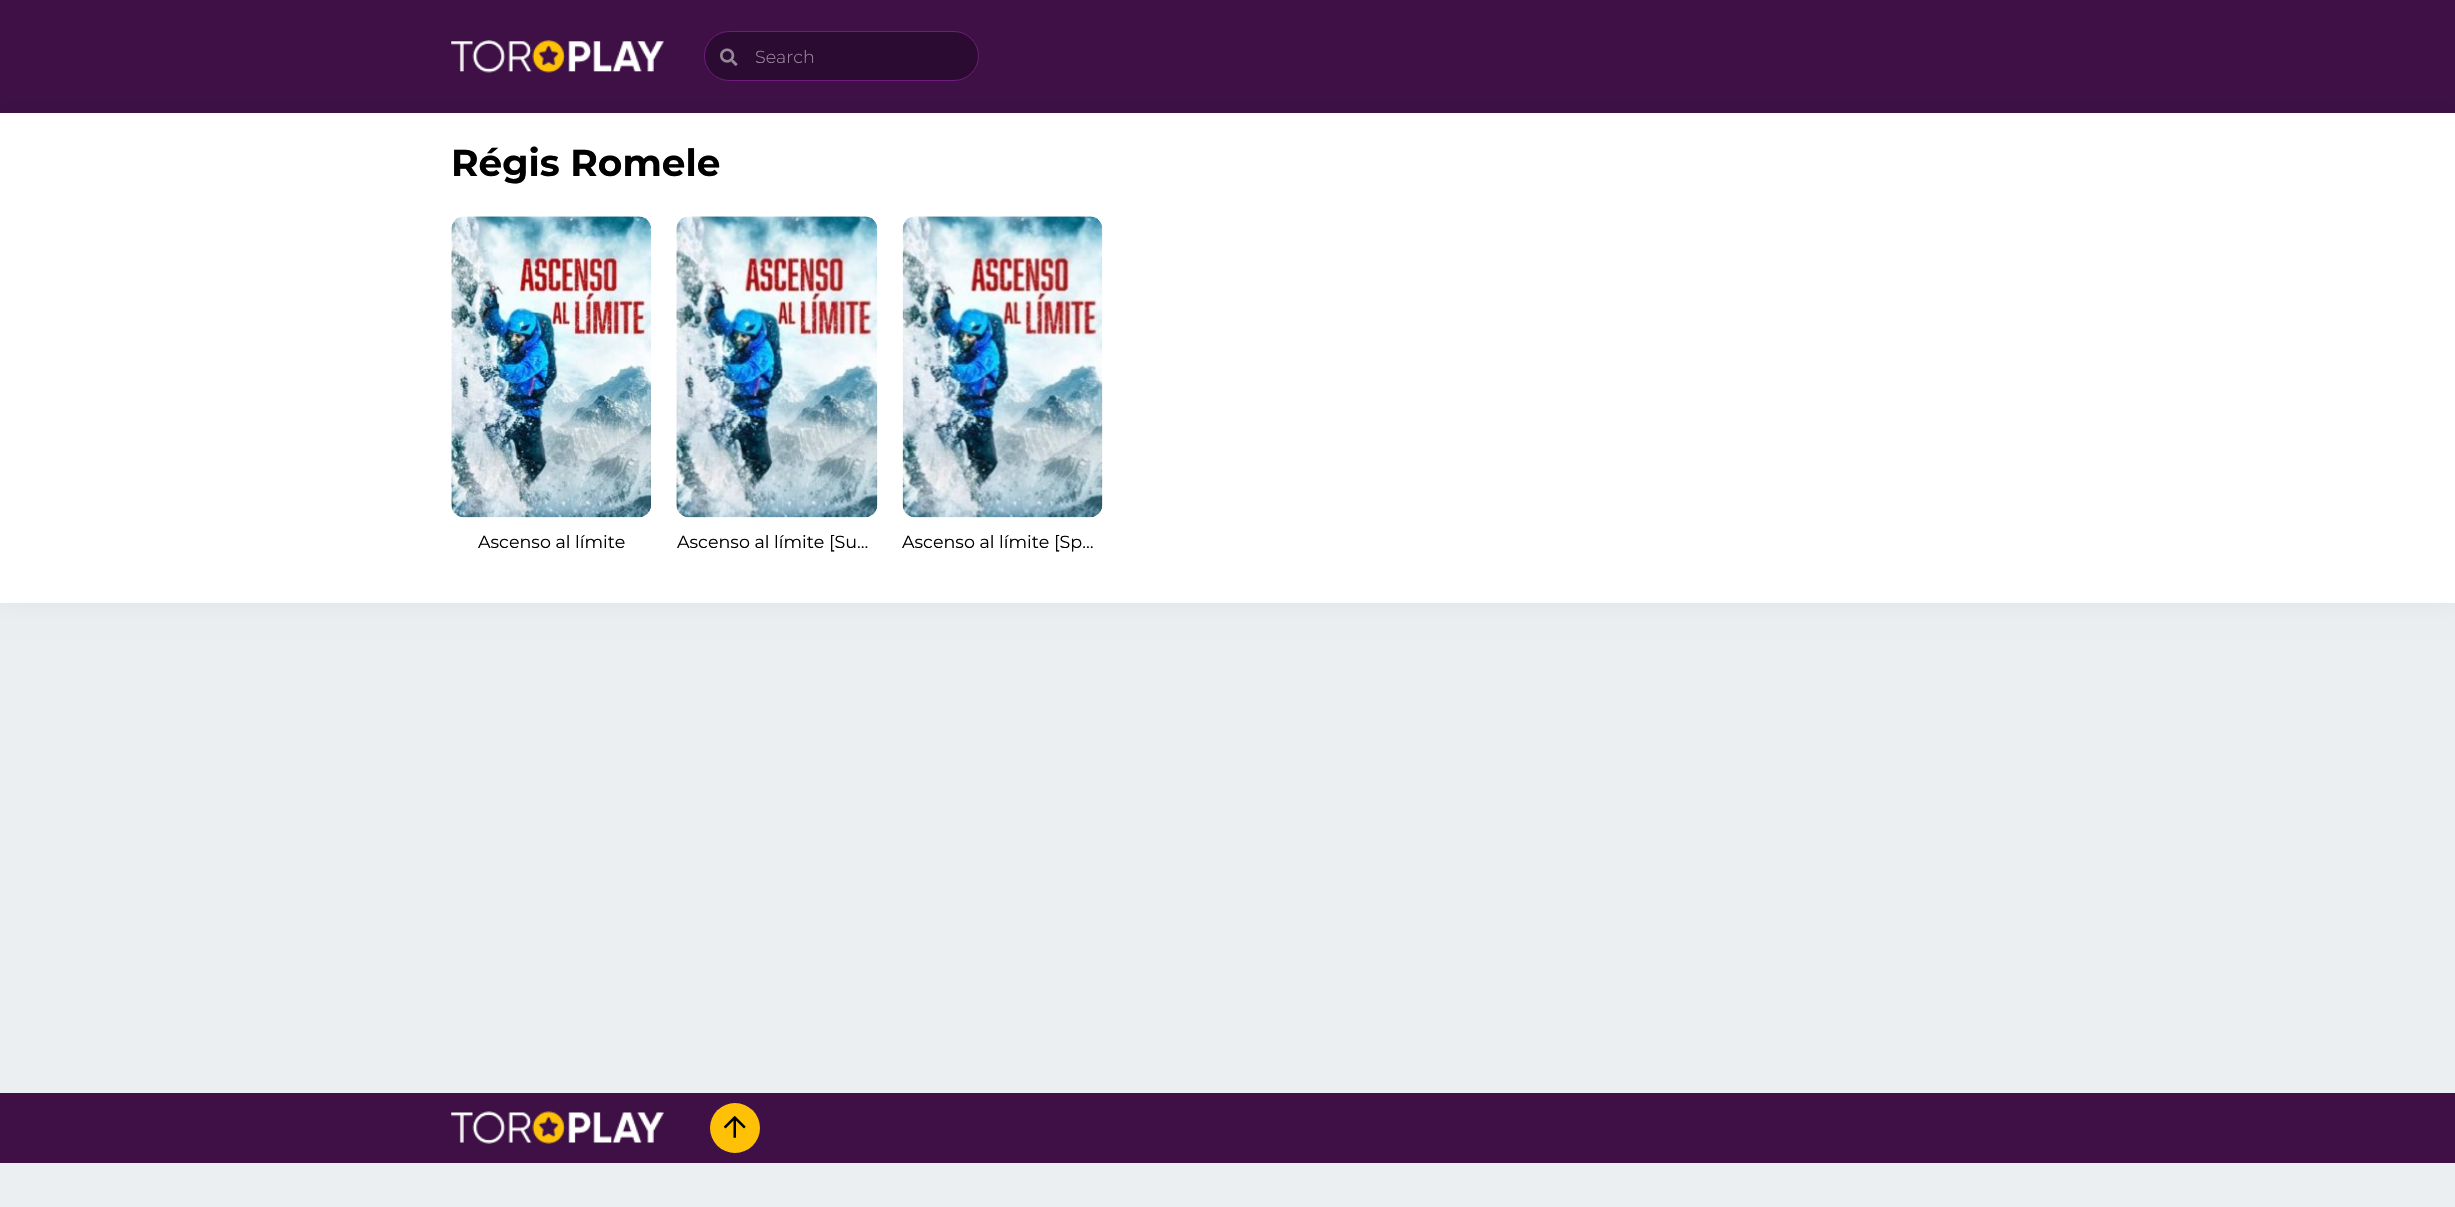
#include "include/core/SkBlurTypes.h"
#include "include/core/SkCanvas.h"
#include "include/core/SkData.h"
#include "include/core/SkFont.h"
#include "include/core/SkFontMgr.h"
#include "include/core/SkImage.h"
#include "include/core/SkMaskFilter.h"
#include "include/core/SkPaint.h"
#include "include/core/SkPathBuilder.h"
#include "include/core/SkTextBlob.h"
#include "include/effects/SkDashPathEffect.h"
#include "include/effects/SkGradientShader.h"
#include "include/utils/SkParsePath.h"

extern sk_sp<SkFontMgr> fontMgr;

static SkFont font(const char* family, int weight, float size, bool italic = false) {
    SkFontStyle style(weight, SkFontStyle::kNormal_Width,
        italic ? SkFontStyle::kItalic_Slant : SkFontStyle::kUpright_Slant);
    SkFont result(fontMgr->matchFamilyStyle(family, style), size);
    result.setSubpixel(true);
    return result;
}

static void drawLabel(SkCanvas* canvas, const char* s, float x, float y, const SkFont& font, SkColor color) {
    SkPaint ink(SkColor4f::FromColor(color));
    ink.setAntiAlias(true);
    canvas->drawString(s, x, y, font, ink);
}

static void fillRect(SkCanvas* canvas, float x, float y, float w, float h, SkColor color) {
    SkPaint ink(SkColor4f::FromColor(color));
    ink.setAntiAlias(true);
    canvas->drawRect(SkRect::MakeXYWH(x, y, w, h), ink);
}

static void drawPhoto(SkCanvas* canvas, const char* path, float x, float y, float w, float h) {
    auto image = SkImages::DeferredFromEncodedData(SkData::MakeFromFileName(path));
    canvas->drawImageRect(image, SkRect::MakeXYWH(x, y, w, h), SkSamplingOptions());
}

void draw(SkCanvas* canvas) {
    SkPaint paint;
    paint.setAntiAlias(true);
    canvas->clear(0xFFECEFF1);
    fillRect(canvas, 0, 0, 2455, 113, 0xFF3E1046);
    drawPhoto(canvas, "assets/img1.png", 451, 40, 213, 33);
    paint.setColor(0xFF2B0B31);
    canvas->drawRoundRect(SkRect::MakeXYWH(704.5f, 31.5f, 274, 49), 24.5f, 24.5f, paint);
    paint.setStroke(true);
    paint.setStrokeWidth(1);
    paint.setColor(0xFF6D1C7B);
    canvas->drawRoundRect(SkRect::MakeXYWH(704.5f, 31.5f, 274, 49), 24.5f, 24.5f, paint);
    drawPhoto(canvas, "assets/img2.png", 720, 48, 18, 18);
    SkFont font1 = font("Montserrat", 300, 17.5f);
    drawLabel(canvas, "Search", 755, 63, font1, 0xFF9F88A3);
    paint.setStroke(false);
    paint.setColor(0x0D000000);
    paint.setMaskFilter(SkMaskFilter::MakeBlur(kNormal_SkBlurStyle, 12.5f));
    canvas->drawRect(SkRect::MakeXYWH(0, 113, 2455, 490), paint);
    paint.setMaskFilter(nullptr);
    fillRect(canvas, 0, 113, 2455, 490, 0xFFFFFFFF);
    SkFont font2 = font("Montserrat", 700, 37.5f);
    drawLabel(canvas, "Régis Romele", 451, 176, font2, 0xFF000000);
    drawPhoto(canvas, "assets/img3.png", 451, 216, 200, 302);
    SkFont font3 = font("Montserrat", 400, 17.5f);
    drawLabel(canvas, "Ascenso al límite", 478, 548, font3, 0xFF000000);
    drawPhoto(canvas, "assets/img4.png", 676, 216, 202, 302);
    drawLabel(canvas, "Ascenso al límite [Su…", 677, 548, font3, 0xFF000000);
    drawPhoto(canvas, "assets/img5.png", 902, 216, 201, 302);
    drawLabel(canvas, "Ascenso al límite [Sp…", 902, 548, font3, 0xFF000000);
    fillRect(canvas, 0, 1093, 2455, 70, 0xFF3E1046);
    drawPhoto(canvas, "assets/img6.png", 451, 1111, 213, 33);
    paint.setColor(0xFFFFC107);
    canvas->drawCircle(735, 1128, 25, paint);
    drawPhoto(canvas, "assets/img7.png", 723, 1116, 23, 22);
}
